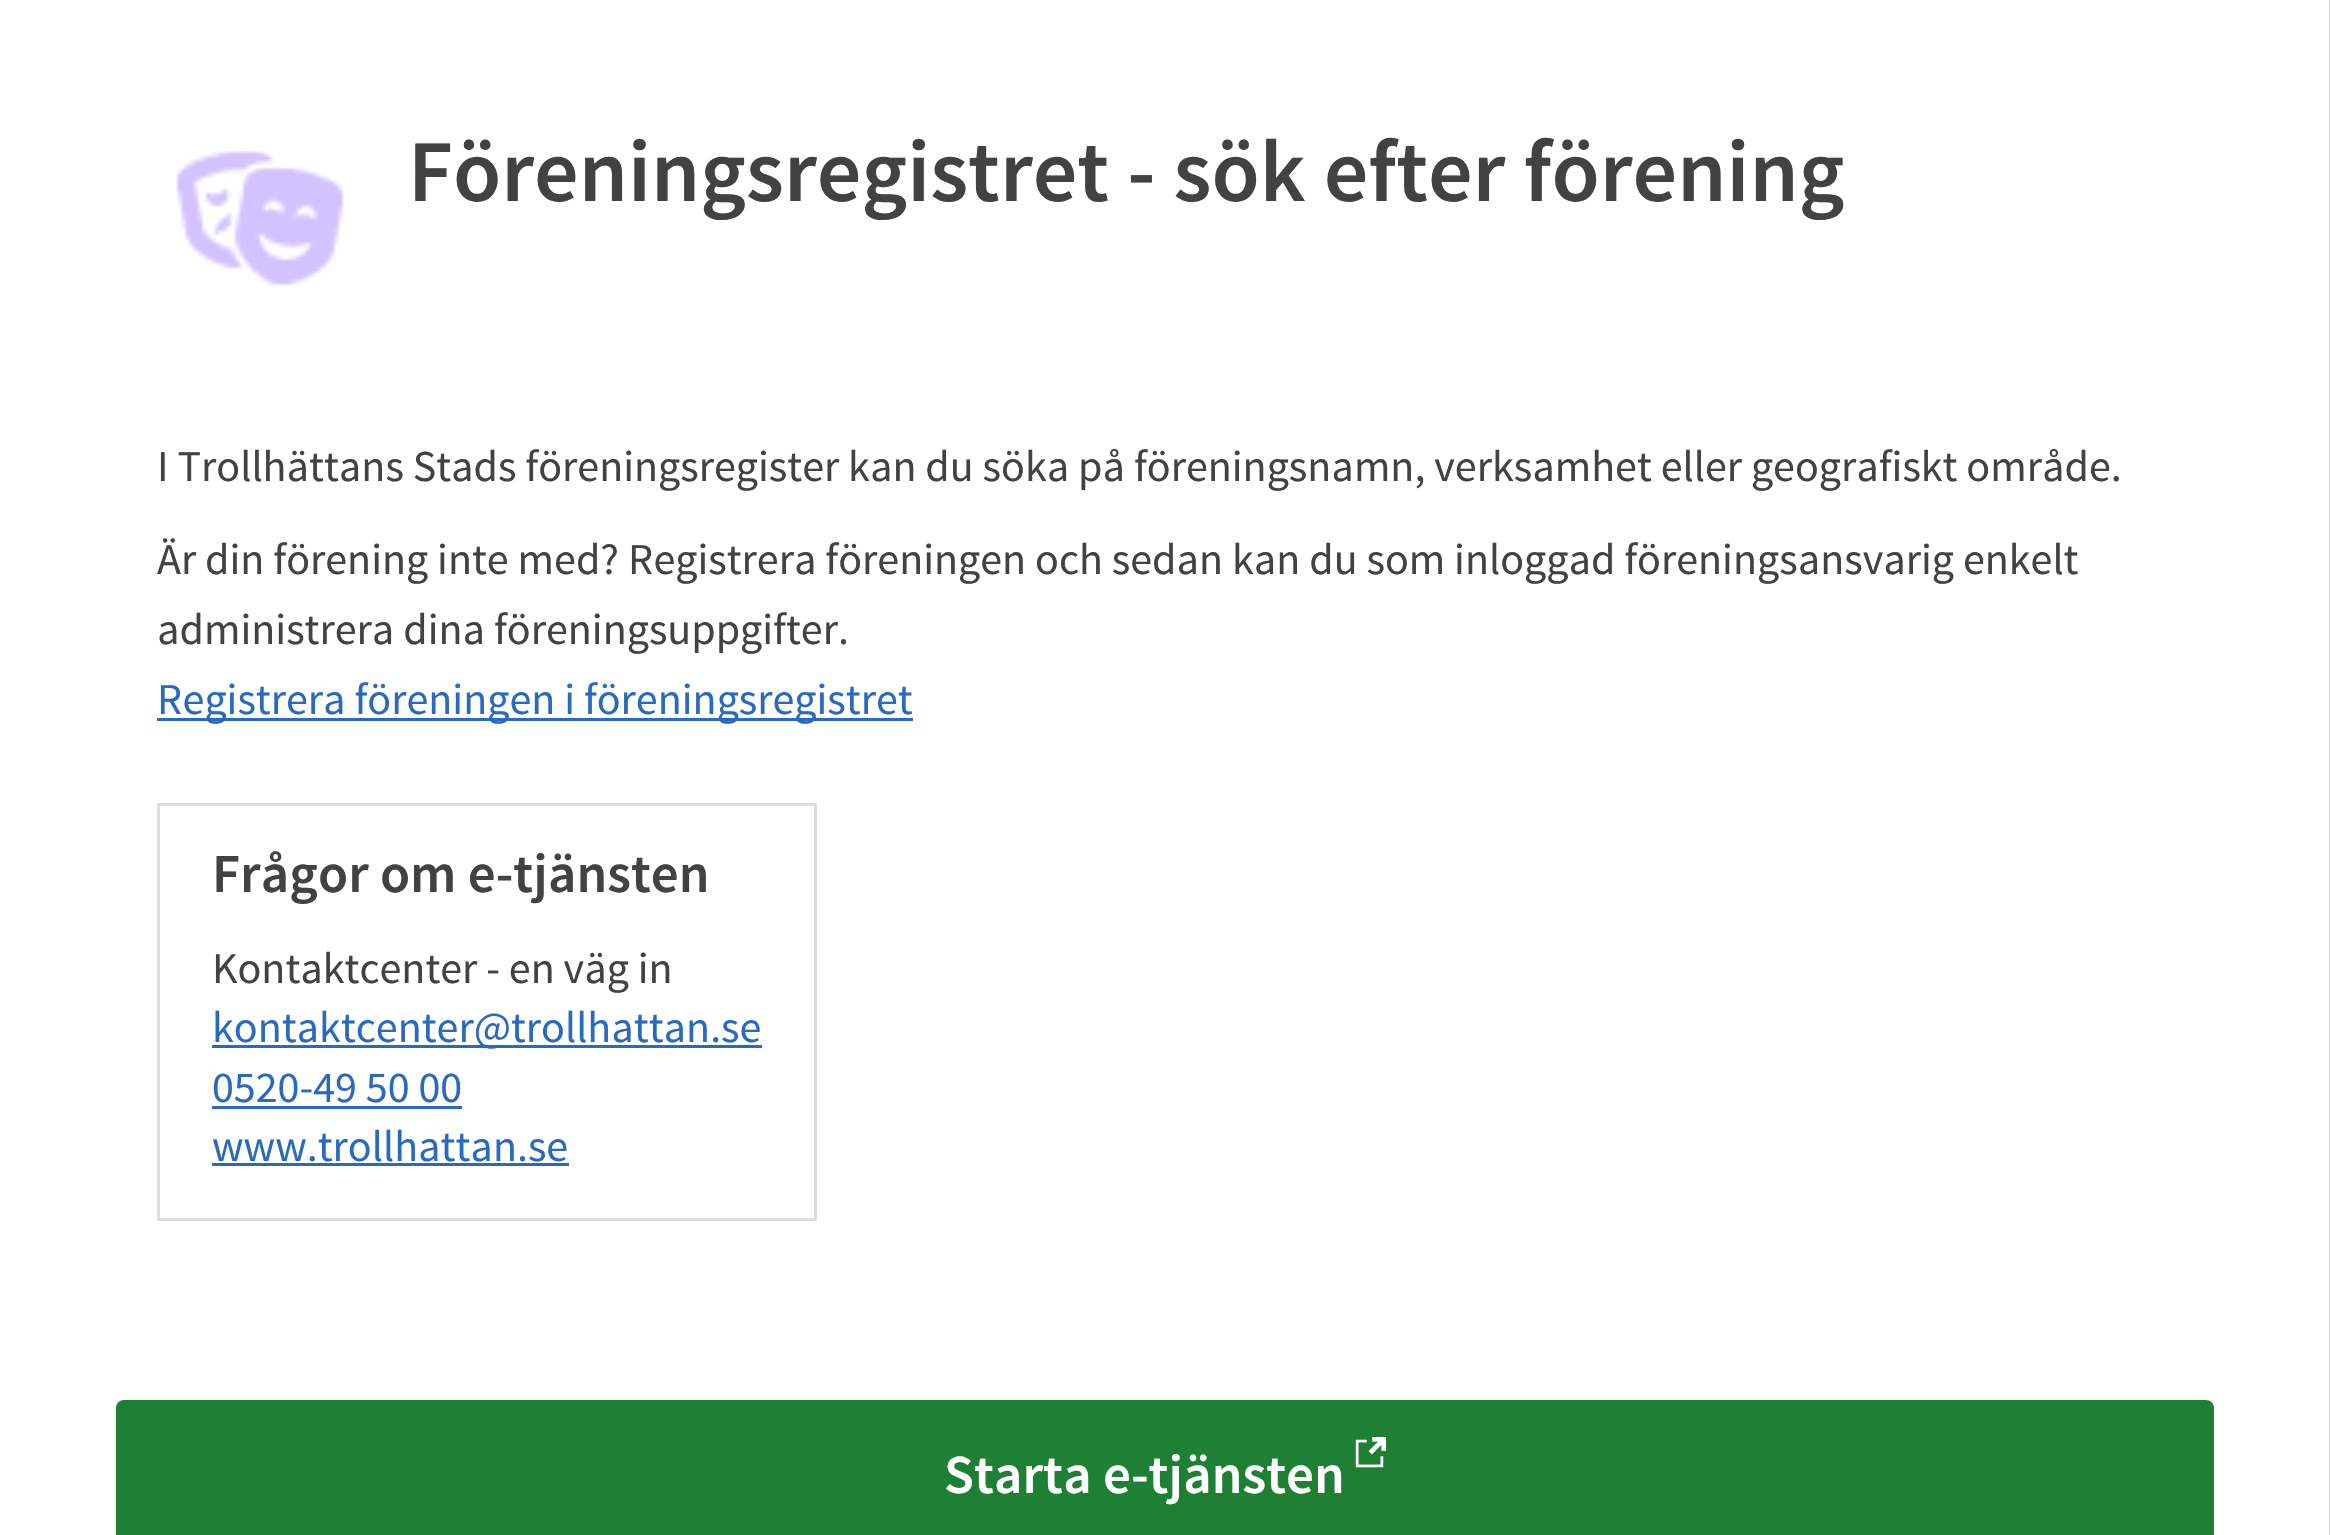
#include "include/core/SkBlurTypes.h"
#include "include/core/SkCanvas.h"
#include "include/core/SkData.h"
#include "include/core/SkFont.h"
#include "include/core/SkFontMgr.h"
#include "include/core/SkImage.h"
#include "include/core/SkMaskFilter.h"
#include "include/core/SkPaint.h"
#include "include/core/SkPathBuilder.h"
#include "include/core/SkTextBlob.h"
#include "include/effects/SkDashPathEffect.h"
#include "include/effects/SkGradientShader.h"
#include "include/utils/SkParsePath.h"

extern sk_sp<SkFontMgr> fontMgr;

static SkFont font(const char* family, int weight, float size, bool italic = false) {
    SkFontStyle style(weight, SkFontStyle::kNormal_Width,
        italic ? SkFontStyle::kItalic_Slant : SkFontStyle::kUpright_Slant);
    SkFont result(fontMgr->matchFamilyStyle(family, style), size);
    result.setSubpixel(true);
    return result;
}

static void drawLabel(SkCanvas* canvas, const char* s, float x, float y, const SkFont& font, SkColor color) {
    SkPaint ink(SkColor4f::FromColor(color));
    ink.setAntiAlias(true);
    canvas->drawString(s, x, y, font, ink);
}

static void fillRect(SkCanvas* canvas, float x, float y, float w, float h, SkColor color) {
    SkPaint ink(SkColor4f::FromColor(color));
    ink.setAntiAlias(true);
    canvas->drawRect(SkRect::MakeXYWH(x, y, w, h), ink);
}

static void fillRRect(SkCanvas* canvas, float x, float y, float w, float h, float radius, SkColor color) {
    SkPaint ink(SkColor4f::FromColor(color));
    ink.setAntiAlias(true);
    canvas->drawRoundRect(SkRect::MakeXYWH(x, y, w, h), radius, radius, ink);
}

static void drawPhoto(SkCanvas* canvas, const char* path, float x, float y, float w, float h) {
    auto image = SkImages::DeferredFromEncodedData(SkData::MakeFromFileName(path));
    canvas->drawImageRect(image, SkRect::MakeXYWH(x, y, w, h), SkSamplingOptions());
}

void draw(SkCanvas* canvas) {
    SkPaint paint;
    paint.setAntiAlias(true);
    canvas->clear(0xFFFFFFFF);
    fillRect(canvas, 2329, 0, 1, 1535, 0xFFCFCFCF);
    drawPhoto(canvas, "assets/img1.png", 176, 150, 168, 136);
    SkFont font1 = font("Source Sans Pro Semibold", 600, 88);
    drawLabel(canvas, "Föreningsregistret - sök efter förening", 408, 201, font1, 0xFF424242);
    SkFont font2 = font("Source Sans Pro", 400, 44);
    drawLabel(canvas, "I Trollhättans Stads föreningsregister kan du söka på föreningsnamn, verksamhet eller geografiskt område.", 157, 481, font2, 0xFF424242);
    drawLabel(canvas, "Är din förening inte med? Registrera föreningen och sedan kan du som inloggad föreningsansvarig enkelt", 157, 574, font2, 0xFF424242);
    drawLabel(canvas, "administrera dina föreningsuppgifter.", 157, 644, font2, 0xFF424242);
    fillRect(canvas, 157, 718, 756, 3, 0xFF2969BF);
    drawLabel(canvas, "Registrera föreningen i föreningsregistret", 157, 714, font2, 0xFF2969BF);
    paint.setStroke(true);
    paint.setStrokeWidth(3);
    paint.setColor(0xFFDDDDDD);
    canvas->drawRect(SkRect::MakeXYWH(158.5f, 804.5f, 657, 415), paint);
    SkFont font3 = font("Source Sans Pro Semibold", 600, 55);
    drawLabel(canvas, "Frågor om e-tjänsten", 212, 892, font3, 0xFF424242);
    drawLabel(canvas, "Kontaktcenter - en väg in", 212, 983, font2, 0xFF424242);
    fillRect(canvas, 212, 1045, 550, 3, 0xFF2969BF);
    drawLabel(canvas, "kontaktcenter@trollhattan.se", 212, 1042, font2, 0xFF2969BF);
    drawLabel(canvas, "0520-49 50 00", 212, 1102, font2, 0xFF2969BF);
    fillRect(canvas, 212, 1106, 250, 3, 0xFF2969BF);
    drawLabel(canvas, "www.trollhattan.se", 212, 1161, font2, 0xFF2969BF);
    fillRect(canvas, 212, 1163, 357, 3, 0xFF2969BF);
    fillRRect(canvas, 116, 1400, 2098, 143, 8, 0xFF1D8034);
    drawLabel(canvas, "Starta e-tjänsten", 944, 1493, font3, 0xFFFFFFFF);
    drawPhoto(canvas, "assets/img2.png", 1355, 1437, 31, 31);
}
